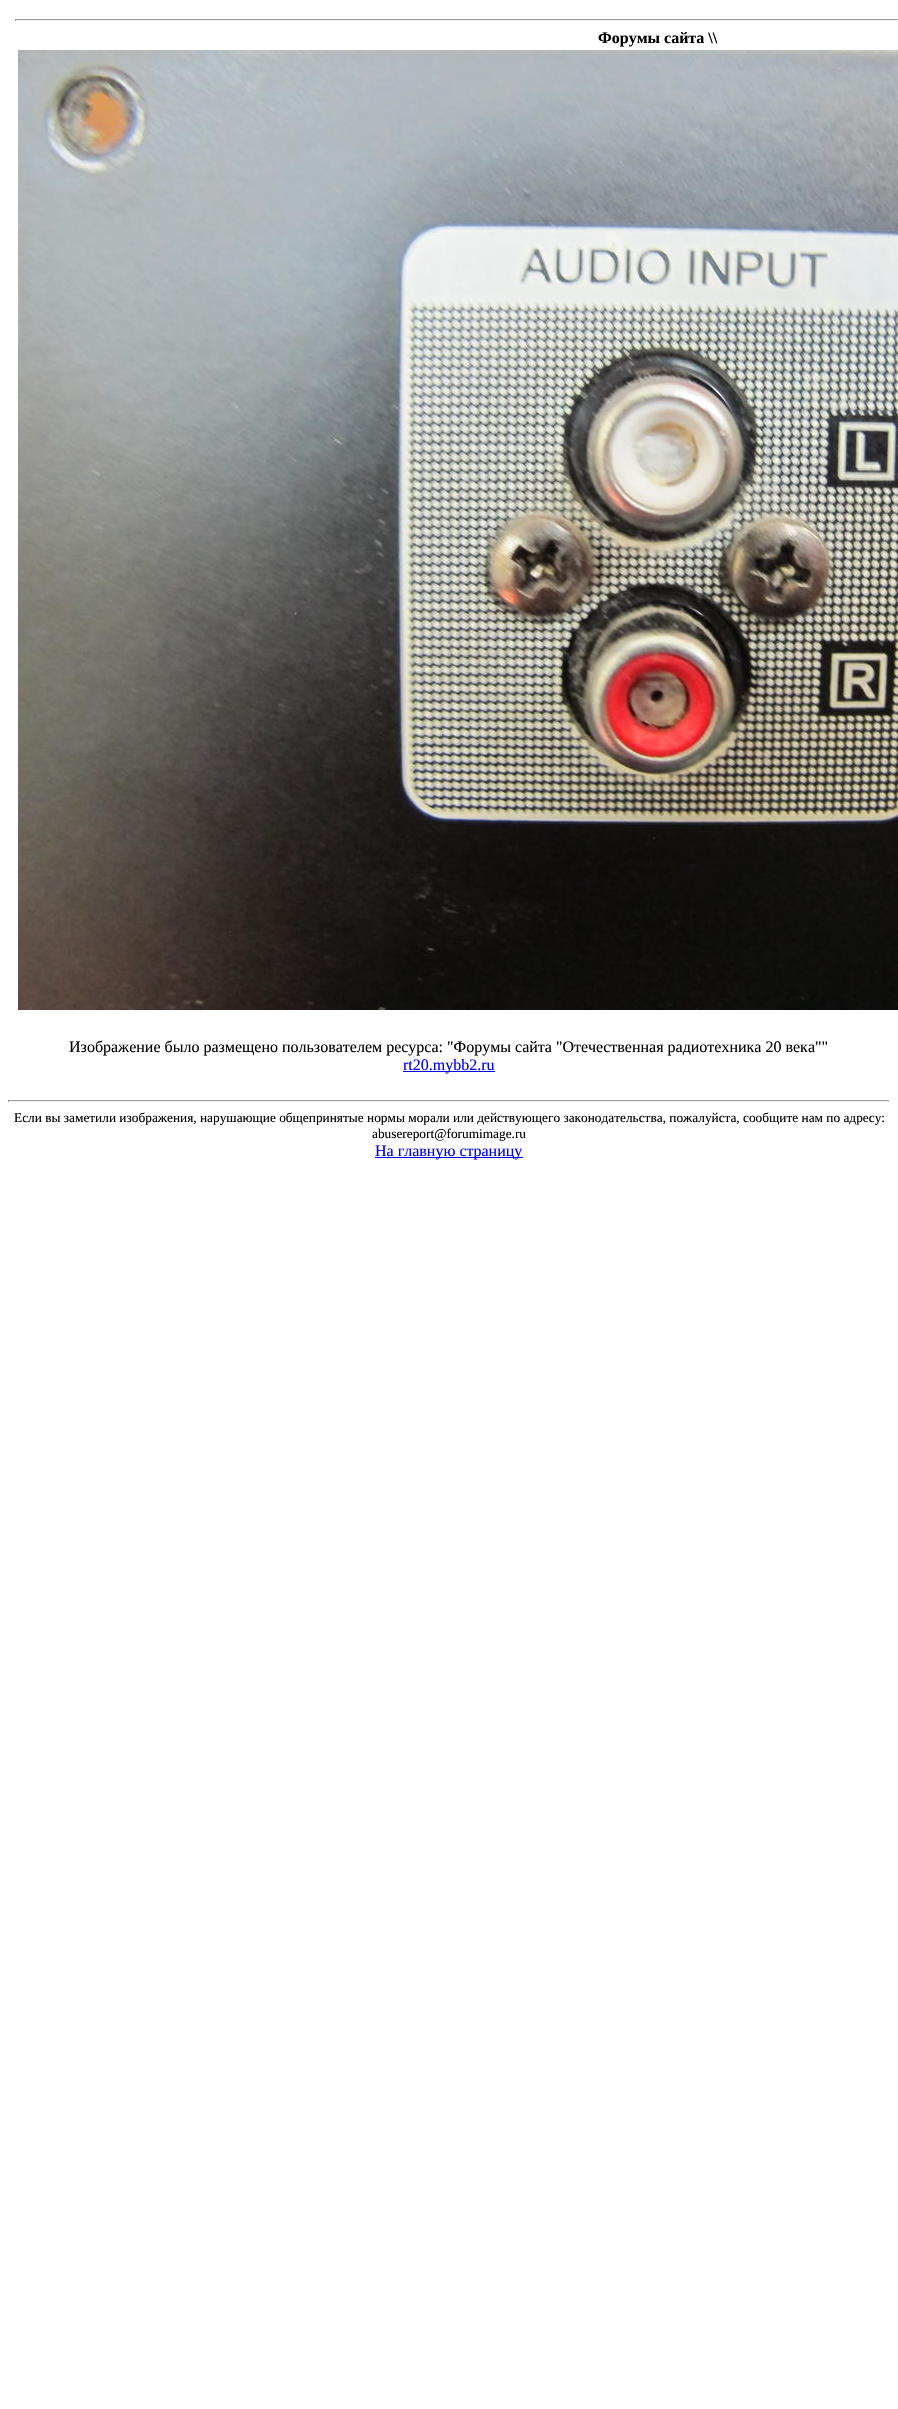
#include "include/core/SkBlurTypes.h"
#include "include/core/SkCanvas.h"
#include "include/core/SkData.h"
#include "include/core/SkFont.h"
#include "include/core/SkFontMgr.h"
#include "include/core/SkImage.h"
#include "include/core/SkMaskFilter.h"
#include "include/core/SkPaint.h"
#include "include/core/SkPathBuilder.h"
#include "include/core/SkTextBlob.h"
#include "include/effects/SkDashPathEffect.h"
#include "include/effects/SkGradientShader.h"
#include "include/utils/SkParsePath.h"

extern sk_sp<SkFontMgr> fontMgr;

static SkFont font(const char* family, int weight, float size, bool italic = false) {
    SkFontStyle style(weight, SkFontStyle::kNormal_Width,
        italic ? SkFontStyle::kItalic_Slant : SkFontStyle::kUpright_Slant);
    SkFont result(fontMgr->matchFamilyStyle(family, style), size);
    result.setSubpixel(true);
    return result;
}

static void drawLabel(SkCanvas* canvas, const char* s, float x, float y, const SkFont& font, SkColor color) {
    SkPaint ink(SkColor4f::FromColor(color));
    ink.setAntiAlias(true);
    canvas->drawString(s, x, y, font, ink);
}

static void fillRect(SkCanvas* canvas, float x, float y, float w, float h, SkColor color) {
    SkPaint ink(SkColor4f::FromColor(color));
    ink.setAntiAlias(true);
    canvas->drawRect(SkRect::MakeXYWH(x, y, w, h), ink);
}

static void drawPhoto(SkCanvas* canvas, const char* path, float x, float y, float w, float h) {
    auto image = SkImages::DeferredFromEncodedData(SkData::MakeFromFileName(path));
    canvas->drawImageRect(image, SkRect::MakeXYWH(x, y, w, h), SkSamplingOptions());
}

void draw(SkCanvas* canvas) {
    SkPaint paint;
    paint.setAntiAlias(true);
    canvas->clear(0xFFFFFFFF);
    fillRect(canvas, 15, 19, 883, 1, 0xFF9F9F9F);
    fillRect(canvas, 15, 20, 883, 1, 0xFFEEEEEE);
    fillRect(canvas, 15, 19, 1, 2, 0xFF9F9F9F);
    SkFont font1 = font("Liberation Serif", 700, 16);
    drawLabel(canvas, "Форумы сайта \\\\", 598, 43, font1, 0xFF000000);
    drawPhoto(canvas, "assets/img1.png", 18, 50, 880, 960);
    SkFont font2 = font("Liberation Serif", 400, 16);
    drawLabel(canvas, "Изображение было размещено пользователем ресурса: \"Форумы сайта \"Отечественная радиотехника 20 века\"\"", 69, 1052, font2, 0xFF000000);
    fillRect(canvas, 403, 1071, 92, 1, 0xFF0000EE);
    drawLabel(canvas, "rt20.mybb2.ru", 403, 1070, font2, 0xFF0000EE);
    fillRect(canvas, 8, 1100, 882, 1, 0xFF9F9F9F);
    fillRect(canvas, 889, 1100, 1, 2, 0xFFEEEEEE);
    fillRect(canvas, 8, 1101, 882, 1, 0xFFEEEEEE);
    fillRect(canvas, 8, 1100, 1, 2, 0xFF9F9F9F);
    SkFont font3 = font("Liberation Serif", 400, 13.33f);
    drawLabel(canvas, "Если вы заметили изображения, нарушающие общепринятые нормы морали или действующего законодательства, пожалуйста, сообщите нам по адресу:", 14, 1122, font3, 0xFF000000);
    drawLabel(canvas, "abusereport@forumimage.ru", 372, 1138, font3, 0xFF000000);
    fillRect(canvas, 375, 1157, 148, 1, 0xFF0000EE);
    drawLabel(canvas, "На главную страницу", 375, 1156, font2, 0xFF0000EE);
}
